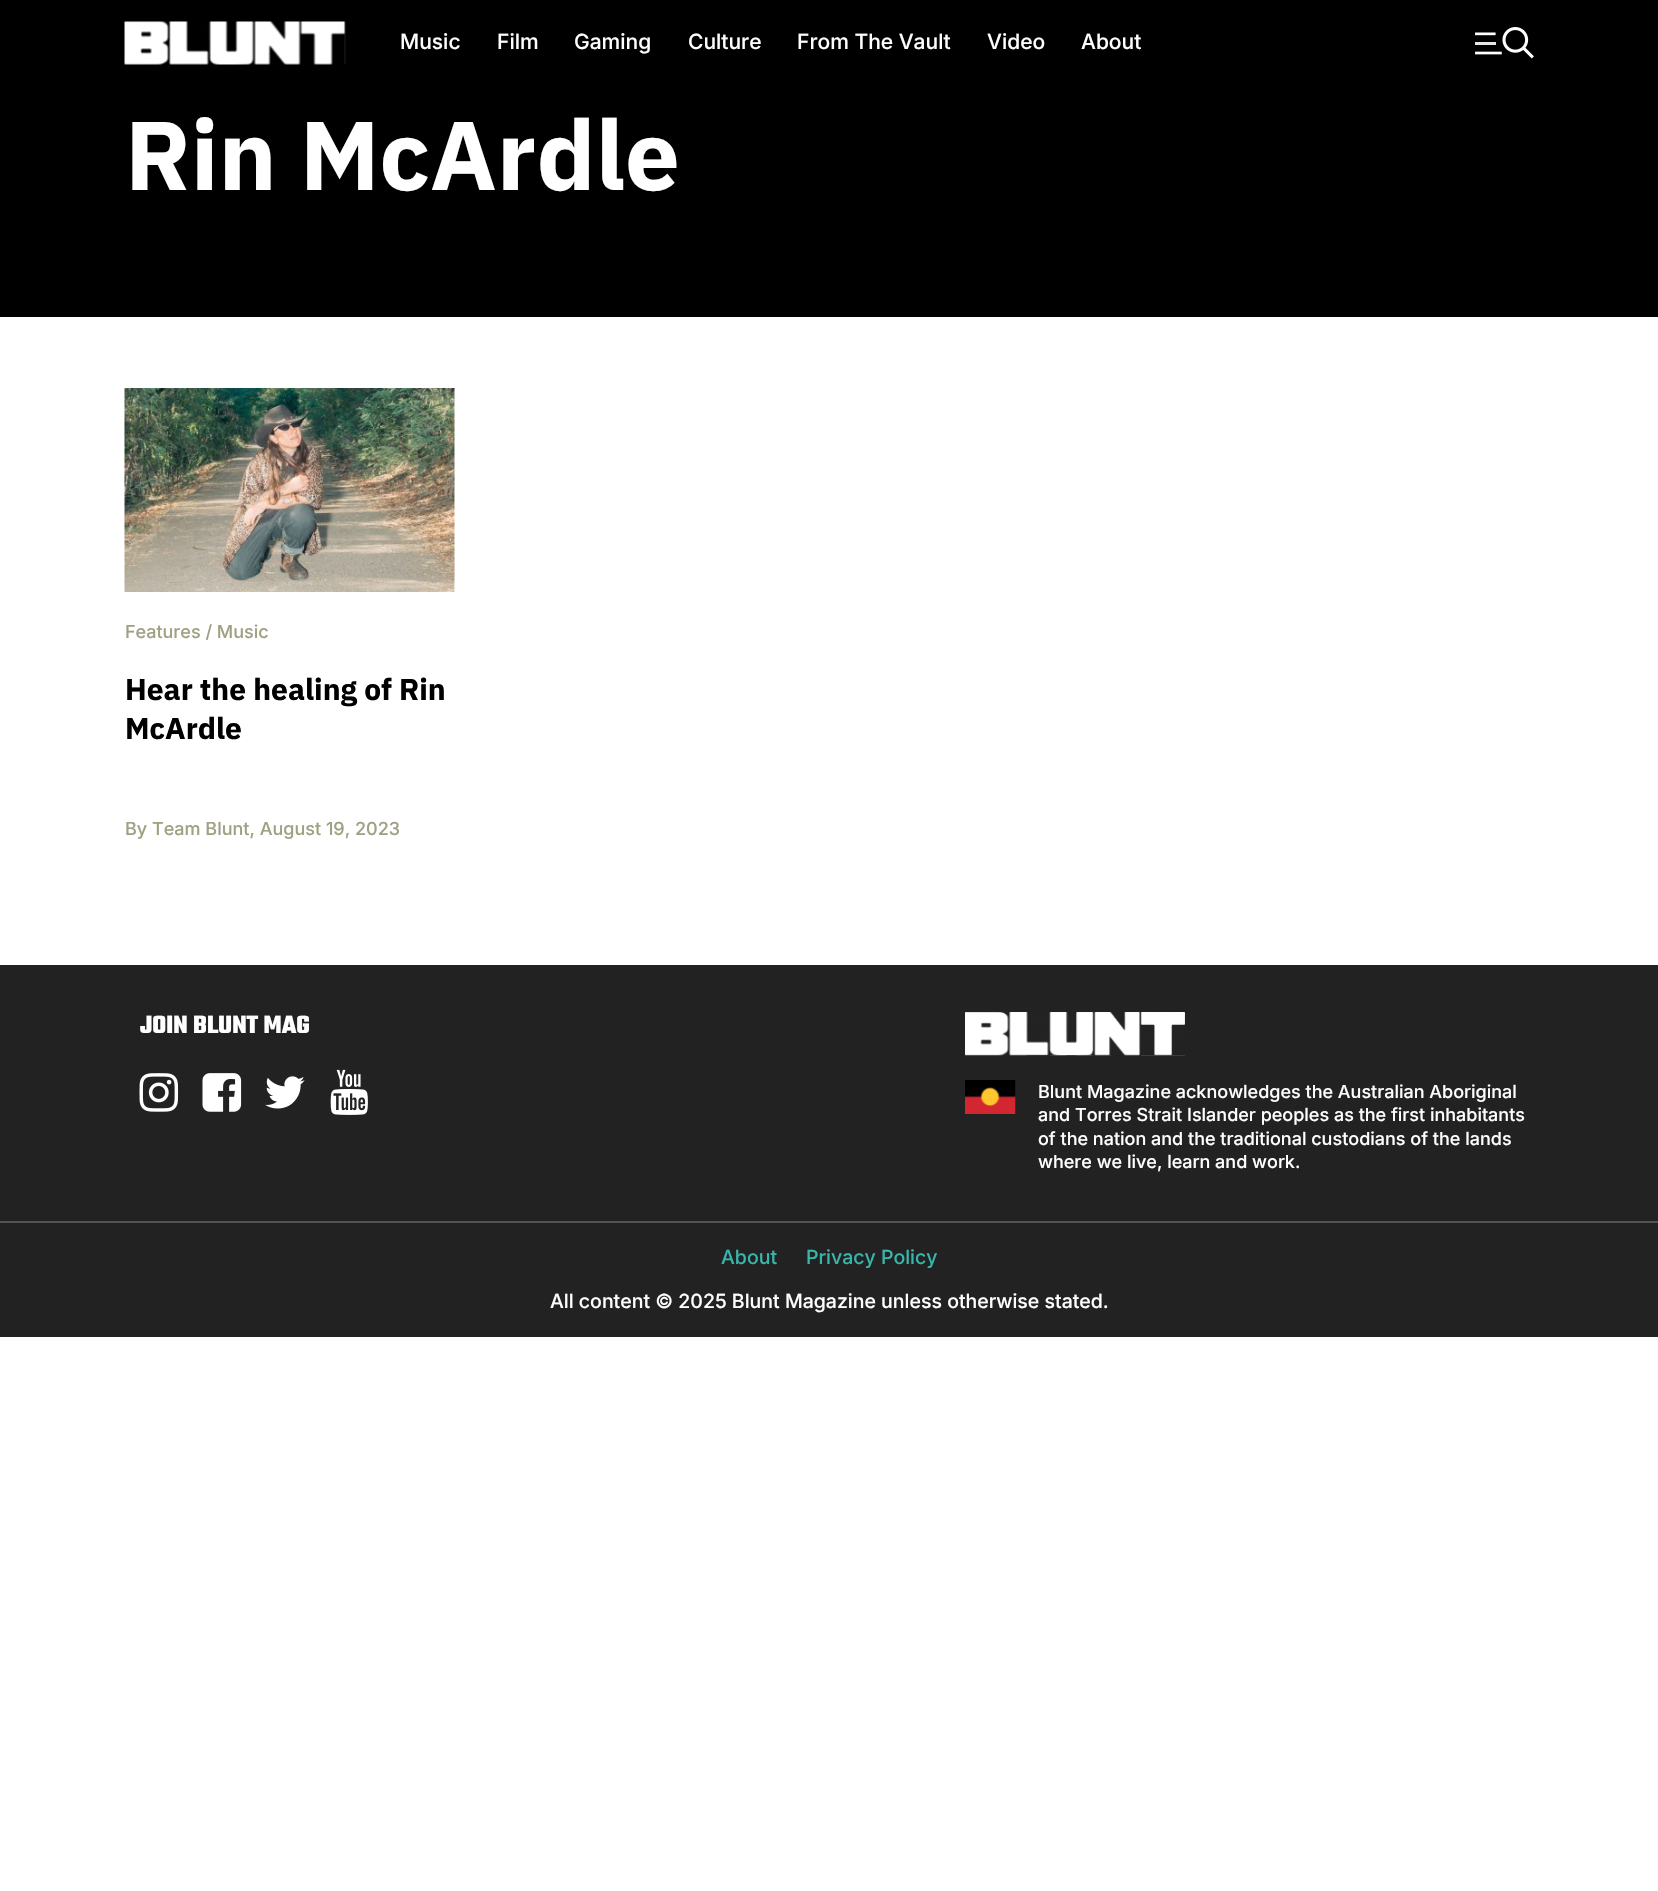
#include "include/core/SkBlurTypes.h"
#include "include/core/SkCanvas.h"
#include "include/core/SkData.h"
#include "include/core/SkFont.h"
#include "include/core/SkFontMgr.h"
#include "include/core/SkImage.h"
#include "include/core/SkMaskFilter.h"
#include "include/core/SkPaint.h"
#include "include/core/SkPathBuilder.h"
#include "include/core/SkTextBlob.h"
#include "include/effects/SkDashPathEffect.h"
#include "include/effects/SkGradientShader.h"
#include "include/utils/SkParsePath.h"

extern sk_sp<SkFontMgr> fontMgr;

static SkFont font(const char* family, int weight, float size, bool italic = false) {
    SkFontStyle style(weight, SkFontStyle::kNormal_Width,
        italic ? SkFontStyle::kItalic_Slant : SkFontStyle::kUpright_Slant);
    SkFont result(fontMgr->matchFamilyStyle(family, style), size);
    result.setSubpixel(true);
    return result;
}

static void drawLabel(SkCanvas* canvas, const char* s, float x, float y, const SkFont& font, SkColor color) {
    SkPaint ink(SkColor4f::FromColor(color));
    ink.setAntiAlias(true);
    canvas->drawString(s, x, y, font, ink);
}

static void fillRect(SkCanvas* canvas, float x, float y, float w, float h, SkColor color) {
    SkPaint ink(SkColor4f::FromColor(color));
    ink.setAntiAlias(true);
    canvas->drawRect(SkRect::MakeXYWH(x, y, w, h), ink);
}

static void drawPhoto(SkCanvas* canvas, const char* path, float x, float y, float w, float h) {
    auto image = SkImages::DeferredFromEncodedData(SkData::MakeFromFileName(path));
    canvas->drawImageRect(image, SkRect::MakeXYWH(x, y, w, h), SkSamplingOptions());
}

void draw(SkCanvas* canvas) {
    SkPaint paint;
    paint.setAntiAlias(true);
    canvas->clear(0xFFFFFFFF);
    fillRect(canvas, 0, 0, 1658, 317, 0xFF000000);
    drawPhoto(canvas, "assets/img1.png", 124, 21, 222, 44);
    SkFont font1 = font("Inter", 500, 21);
    drawLabel(canvas, "Music", 400, 49, font1, 0xFFFFFFFF);
    drawLabel(canvas, "Film", 497, 49, font1, 0xFFFFFFFF);
    drawLabel(canvas, "Gaming", 574, 49, font1, 0xFFFFFFFF);
    drawLabel(canvas, "Culture", 688, 49, font1, 0xFFFFFFFF);
    drawLabel(canvas, "From The Vault", 797, 49, font1, 0xFFFFFFFF);
    drawLabel(canvas, "Video", 987, 49, font1, 0xFFFFFFFF);
    drawLabel(canvas, "About", 1081, 49, font1, 0xFFFFFFFF);
    drawPhoto(canvas, "assets/img2.png", 1475, 27, 59, 32);
    SkFont font2 = font("IBM Plex Sans", 700, 97.5f);
    drawLabel(canvas, "Rin McArdle", 125, 190, font2, 0xFFFFFFFF);
    drawPhoto(canvas, "assets/img3.png", 124, 388, 331, 204);
    SkFont font3 = font("Inter", 500, 18);
    drawLabel(canvas, "Features / Music", 125, 638, font3, 0xFFA0A082);
    SkFont font4 = font("IBM Plex Sans", 700, 30);
    drawLabel(canvas, "Hear the healing of Rin", 125, 700, font4, 0xFF000000);
    drawLabel(canvas, "McArdle", 125, 739, font4, 0xFF000000);
    drawLabel(canvas, "By Team Blunt, August 19, 2023", 125, 835, font3, 0xFFA0A082);
    fillRect(canvas, 0, 965, 1658, 256, 0xFF222222);
    SkFont font5 = font("Teko", 300, 27);
    drawLabel(canvas, "JOIN BLUNT MAG", 140, 1033, font5, 0xFFFFFFFF);
    drawPhoto(canvas, "assets/img4.png", 139, 1073, 40, 39);
    drawPhoto(canvas, "assets/img5.png", 202, 1073, 40, 39);
    drawPhoto(canvas, "assets/img6.png", 265, 1076, 40, 33);
    drawPhoto(canvas, "assets/img7.png", 330, 1069, 38, 46);
    drawPhoto(canvas, "assets/img8.png", 965, 1012, 220, 44);
    drawPhoto(canvas, "assets/img9.png", 965, 1080, 51, 34);
    drawLabel(canvas, "Blunt Magazine acknowledges the Australian Aboriginal", 1038, 1098, font3, 0xFFFFFFFF);
    drawLabel(canvas, "and Torres Strait Islander peoples as the first inhabitants", 1038, 1121, font3, 0xFFFFFFFF);
    drawLabel(canvas, "of the nation and the traditional custodians of the lands", 1038, 1145, font3, 0xFFFFFFFF);
    drawLabel(canvas, "where we live, learn and work.", 1038, 1168, font3, 0xFFFFFFFF);
    fillRect(canvas, 0, 1223, 1658, 114, 0xFF222222);
    fillRect(canvas, 0, 1221, 1658, 2, 0xFF535353);
    SkFont font6 = font("Inter", 500, 19.5f);
    drawLabel(canvas, "About", 721, 1264, font6, 0xFF37B6AB);
    drawLabel(canvas, "Privacy Policy", 806, 1264, font6, 0xFF37B6AB);
    drawLabel(canvas, "All content © 2025 Blunt Magazine unless otherwise stated.", 550, 1308, font6, 0xFFFFFFFF);
}
